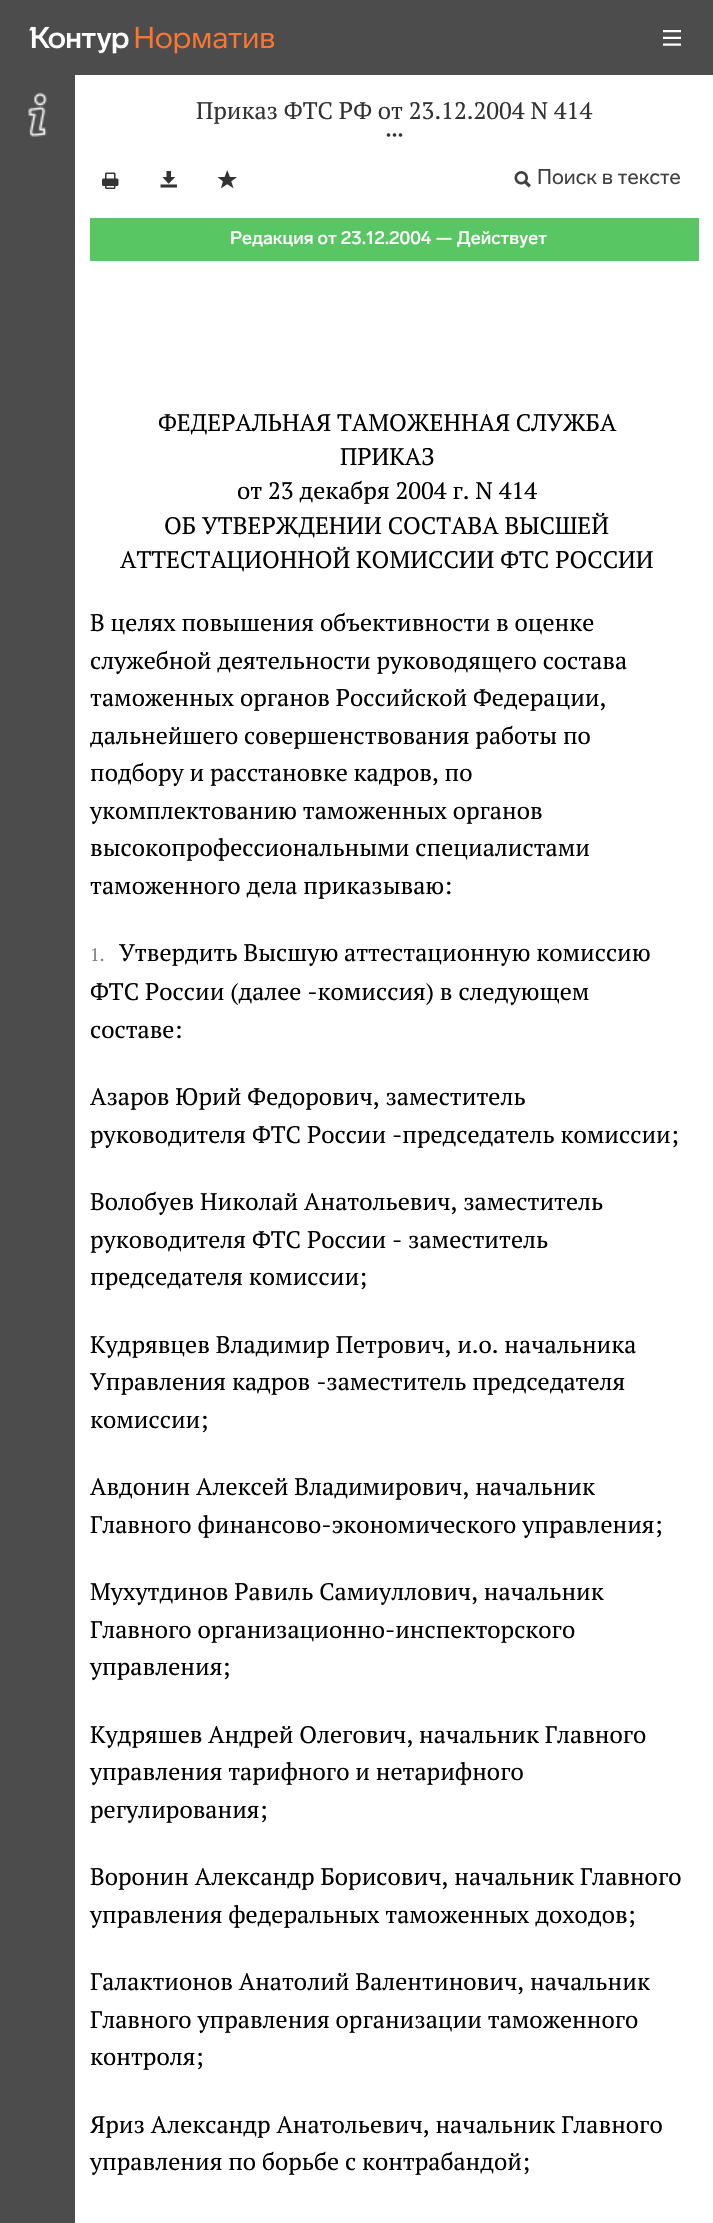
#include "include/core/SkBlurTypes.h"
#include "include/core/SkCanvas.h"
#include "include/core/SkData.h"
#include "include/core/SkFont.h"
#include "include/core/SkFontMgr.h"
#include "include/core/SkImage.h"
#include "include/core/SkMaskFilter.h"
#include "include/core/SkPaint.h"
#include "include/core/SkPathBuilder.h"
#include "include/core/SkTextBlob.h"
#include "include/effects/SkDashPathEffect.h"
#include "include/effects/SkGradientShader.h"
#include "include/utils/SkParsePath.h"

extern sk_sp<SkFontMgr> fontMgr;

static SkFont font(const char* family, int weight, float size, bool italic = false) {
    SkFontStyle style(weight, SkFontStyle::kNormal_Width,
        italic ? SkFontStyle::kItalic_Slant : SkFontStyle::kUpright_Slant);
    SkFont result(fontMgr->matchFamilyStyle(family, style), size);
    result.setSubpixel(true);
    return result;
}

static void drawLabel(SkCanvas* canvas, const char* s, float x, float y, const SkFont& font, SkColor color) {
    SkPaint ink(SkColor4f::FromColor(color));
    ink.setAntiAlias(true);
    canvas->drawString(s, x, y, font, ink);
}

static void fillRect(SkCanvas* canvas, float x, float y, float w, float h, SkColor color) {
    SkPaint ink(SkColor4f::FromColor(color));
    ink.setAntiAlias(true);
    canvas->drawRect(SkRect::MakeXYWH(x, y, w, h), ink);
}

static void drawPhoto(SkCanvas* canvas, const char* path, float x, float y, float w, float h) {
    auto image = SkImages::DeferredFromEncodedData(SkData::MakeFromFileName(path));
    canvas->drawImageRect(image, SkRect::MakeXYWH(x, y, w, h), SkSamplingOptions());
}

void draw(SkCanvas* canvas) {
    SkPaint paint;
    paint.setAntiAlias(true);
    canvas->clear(0xFFFFFFFF);
    fillRect(canvas, 0, 0, 713, 75, 0xFF4C4C4C);
    drawPhoto(canvas, "assets/img1.png", 29, 26, 100, 28);
    drawPhoto(canvas, "assets/img2.png", 135, 26, 140, 28);
    drawPhoto(canvas, "assets/img3.png", 663, 30, 18, 16);
    fillRect(canvas, 0, 75, 75, 2148, 0xFF4C4C4C);
    drawPhoto(canvas, "assets/img4.png", 28, 92, 19, 45);
    SkFont font1 = font("PT Serif", 400, 24);
    drawLabel(canvas, "Приказ ФТС РФ от 23.12.2004 N 414", 196, 119, font1, 0xFF333333);
    drawPhoto(canvas, "assets/img5.png", 386, 133, 17, 4);
    drawPhoto(canvas, "assets/img6.png", 102, 172, 17, 17);
    drawPhoto(canvas, "assets/img7.png", 160, 171, 17, 17);
    drawPhoto(canvas, "assets/img8.png", 217, 170, 20, 19);
    drawPhoto(canvas, "assets/img9.png", 514, 171, 17, 17);
    SkFont font2 = font("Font", 400, 21);
    drawLabel(canvas, "Поиск в тексте", 537, 184, font2, 0xFF404040);
    fillRect(canvas, 90, 218, 609, 43, 0xFF57C663);
    SkFont font3 = font("Font", 500, 18);
    drawLabel(canvas, "Редакция от 23.12.2004 — Действует", 230, 244, font3, 0xFFFFFFFF);
    drawLabel(canvas, "ФЕДЕРАЛЬНАЯ ТАМОЖЕННАЯ СЛУЖБА", 158, 431, font1, 0xFF000000);
    drawLabel(canvas, "ПРИКАЗ", 340, 465, font1, 0xFF000000);
    drawLabel(canvas, "от 23 декабря 2004 г. N 414", 237, 499, font1, 0xFF000000);
    drawLabel(canvas, "ОБ УТВЕРЖДЕНИИ СОСТАВА ВЫСШЕЙ", 164, 534, font1, 0xFF000000);
    drawLabel(canvas, "АТТЕСТАЦИОННОЙ КОМИССИИ ФТС РОССИИ", 120, 568, font1, 0xFF000000);
    drawLabel(canvas, "В целях повышения объективности в оценке", 90, 631, font1, 0xFF000000);
    drawLabel(canvas, "служебной деятельности руководящего состава", 90, 669, font1, 0xFF000000);
    drawLabel(canvas, "таможенных органов Российской Федерации,", 90, 706, font1, 0xFF000000);
    drawLabel(canvas, "дальнейшего совершенствования работы по", 90, 744, font1, 0xFF000000);
    drawLabel(canvas, "подбору и расстановке кадров, по", 90, 781, font1, 0xFF000000);
    drawLabel(canvas, "укомплектованию таможенных органов", 90, 819, font1, 0xFF000000);
    drawLabel(canvas, "высокопрофессиональными специалистами", 90, 856, font1, 0xFF000000);
    drawLabel(canvas, "таможенного дела приказываю:", 90, 894, font1, 0xFF000000);
    SkFont font4 = font("PT Serif", 400, 18);
    drawLabel(canvas, "1.", 90, 961, font4, 0xFF808080);
    drawLabel(canvas, "Утвердить Высшую аттестационную комиссию", 119, 961, font1, 0xFF000000);
    drawLabel(canvas, "ФТС России (далее -комиссия) в следующем", 90, 1000, font1, 0xFF000000);
    drawLabel(canvas, "составе:", 90, 1038, font1, 0xFF000000);
    drawLabel(canvas, "Азаров Юрий Федорович, заместитель", 90, 1105, font1, 0xFF000000);
    drawLabel(canvas, "руководителя ФТС России -председатель комиссии;", 90, 1143, font1, 0xFF000000);
    drawLabel(canvas, "Волобуев Николай Анатольевич, заместитель", 90, 1210, font1, 0xFF000000);
    drawLabel(canvas, "руководителя ФТС России - заместитель", 90, 1248, font1, 0xFF000000);
    drawLabel(canvas, "председателя комиссии;", 90, 1285, font1, 0xFF000000);
    drawLabel(canvas, "Кудрявцев Владимир Петрович, и.о. начальника", 90, 1353, font1, 0xFF000000);
    drawLabel(canvas, "Управления кадров -заместитель председателя", 90, 1390, font1, 0xFF000000);
    drawLabel(canvas, "комиссии;", 90, 1428, font1, 0xFF000000);
    drawLabel(canvas, "Авдонин Алексей Владимирович, начальник", 90, 1495, font1, 0xFF000000);
    drawLabel(canvas, "Главного финансово-экономического управления;", 90, 1533, font1, 0xFF000000);
    drawLabel(canvas, "Мухутдинов Равиль Самиуллович, начальник", 90, 1600, font1, 0xFF000000);
    drawLabel(canvas, "Главного организационно-инспекторского", 90, 1638, font1, 0xFF000000);
    drawLabel(canvas, "управления;", 90, 1675, font1, 0xFF000000);
    drawLabel(canvas, "Кудряшев Андрей Олегович, начальник Главного", 90, 1743, font1, 0xFF000000);
    drawLabel(canvas, "управления тарифного и нетарифного", 90, 1780, font1, 0xFF000000);
    drawLabel(canvas, "регулирования;", 90, 1818, font1, 0xFF000000);
    drawLabel(canvas, "Воронин Александр Борисович, начальник Главного", 90, 1885, font1, 0xFF000000);
    drawLabel(canvas, "управления федеральных таможенных доходов;", 90, 1923, font1, 0xFF000000);
    drawLabel(canvas, "Галактионов Анатолий Валентинович, начальник", 90, 1990, font1, 0xFF000000);
    drawLabel(canvas, "Главного управления организации таможенного", 90, 2028, font1, 0xFF000000);
    drawLabel(canvas, "контроля;", 90, 2065, font1, 0xFF000000);
    drawLabel(canvas, "Яриз Александр Анатольевич, начальник Главного", 90, 2133, font1, 0xFF000000);
    drawLabel(canvas, "управления по борьбе с контрабандой;", 90, 2170, font1, 0xFF000000);
}
